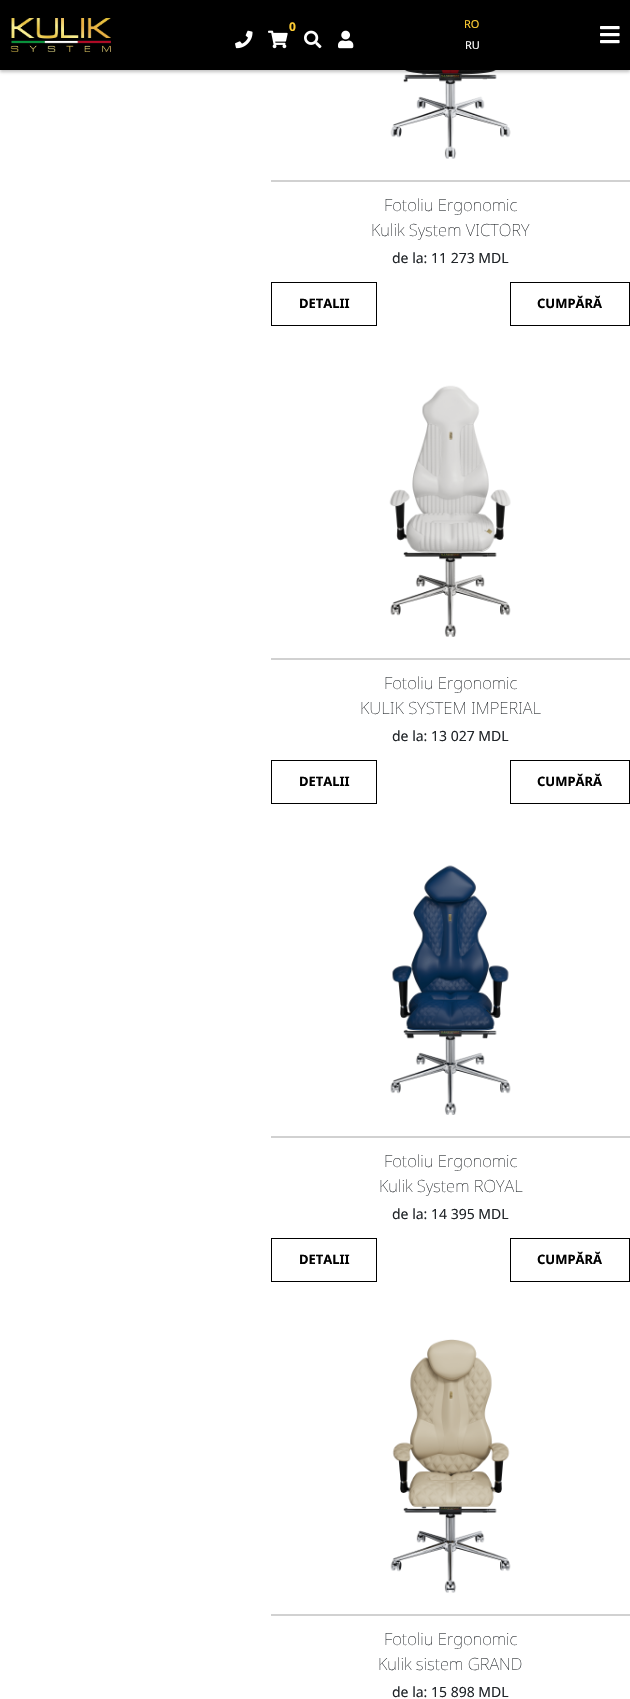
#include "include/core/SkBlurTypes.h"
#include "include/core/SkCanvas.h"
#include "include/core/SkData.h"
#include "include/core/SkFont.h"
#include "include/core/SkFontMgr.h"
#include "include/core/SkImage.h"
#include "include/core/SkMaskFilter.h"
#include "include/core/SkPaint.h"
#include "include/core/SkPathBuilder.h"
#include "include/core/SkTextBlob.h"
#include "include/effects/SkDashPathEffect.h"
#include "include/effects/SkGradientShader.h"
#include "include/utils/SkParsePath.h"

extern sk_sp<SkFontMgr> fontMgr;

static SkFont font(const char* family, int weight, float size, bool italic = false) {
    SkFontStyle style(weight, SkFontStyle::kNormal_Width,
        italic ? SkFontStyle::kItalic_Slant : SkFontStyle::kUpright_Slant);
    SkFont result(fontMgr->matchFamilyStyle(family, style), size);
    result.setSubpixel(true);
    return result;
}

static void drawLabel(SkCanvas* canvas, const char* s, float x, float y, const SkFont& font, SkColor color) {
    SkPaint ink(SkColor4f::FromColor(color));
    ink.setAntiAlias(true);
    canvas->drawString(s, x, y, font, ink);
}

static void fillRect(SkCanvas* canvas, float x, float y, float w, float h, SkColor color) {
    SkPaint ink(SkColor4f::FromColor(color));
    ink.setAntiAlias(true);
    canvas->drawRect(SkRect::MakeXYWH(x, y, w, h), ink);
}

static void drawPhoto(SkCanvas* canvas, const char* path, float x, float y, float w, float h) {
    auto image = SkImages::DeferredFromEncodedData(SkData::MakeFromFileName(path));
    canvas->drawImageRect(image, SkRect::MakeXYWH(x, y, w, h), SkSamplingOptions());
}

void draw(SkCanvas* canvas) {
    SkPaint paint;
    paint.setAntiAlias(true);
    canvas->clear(0xFFFFFFFF);
    drawPhoto(canvas, "assets/img7.png", 390, 70, 121, 89);
    paint.setColor(0x3D000000);
    paint.setMaskFilter(SkMaskFilter::MakeBlur(kNormal_SkBlurStyle, 1.5f));
    canvas->drawRect(SkRect::MakeXYWH(0, 2, 630, 70), paint);
    paint.setMaskFilter(nullptr);
    fillRect(canvas, 0, 0, 630, 70, 0xFF000000);
    drawPhoto(canvas, "assets/img1.png", 10, 18, 101, 34);
    SkFont font1 = font("Noto Sans", 700, 12);
    drawLabel(canvas, "0", 289, 31, font1, 0xFFFFCD33);
    drawPhoto(canvas, "assets/img2.png", 268, 30, 20, 19);
    drawPhoto(canvas, "assets/img3.png", 235, 30, 18, 19);
    drawPhoto(canvas, "assets/img4.png", 304, 30, 18, 19);
    drawPhoto(canvas, "assets/img5.png", 338, 30, 16, 19);
    SkFont font2 = font("Noto Sans", 400, 11);
    drawLabel(canvas, "RO", 464, 28, font2, 0xFFFFCD33);
    drawLabel(canvas, "RU", 465, 49, font2, 0xFFFFFFFF);
    drawPhoto(canvas, "assets/img6.png", 600, 26, 20, 18);
    fillRect(canvas, 271, 180, 359, 2, 0xFFD1D1D1);
    SkFont font3 = font("Noto Sans", 100, 16.75f);
    drawLabel(canvas, "Fotoliu Ergonomic", 384, 211, font3, 0xFF212529);
    drawLabel(canvas, "Kulik System VICTORY", 371, 236, font3, 0xFF212529);
    SkFont font4 = font("Noto Sans", 400, 14);
    drawLabel(canvas, "de la: 11 273 MDL", 392, 263, font4, 0xFF212529);
    paint.setStroke(true);
    paint.setStrokeWidth(1);
    paint.setColor(0xFF000000);
    canvas->drawRect(SkRect::MakeXYWH(271.5f, 282.5f, 105, 43), paint);
    SkFont font5 = font("Noto Sans", 700, 13);
    drawLabel(canvas, "DETALII", 299, 308, font5, 0xFF000000);
    canvas->drawRect(SkRect::MakeXYWH(510.5f, 282.5f, 119, 43), paint);
    drawLabel(canvas, "CUMPĂRĂ", 537, 308, font5, 0xFF000000);
    drawPhoto(canvas, "assets/img8.png", 389, 385, 122, 252);
    fillRect(canvas, 271, 658, 359, 2, 0xFFD1D1D1);
    drawLabel(canvas, "Fotoliu Ergonomic", 384, 689, font3, 0xFF212529);
    drawLabel(canvas, "KULIK SYSTEM IMPERIAL", 360, 714, font3, 0xFF212529);
    drawLabel(canvas, "de la: 13 027 MDL", 392, 741, font4, 0xFF212529);
    canvas->drawRect(SkRect::MakeXYWH(271.5f, 760.5f, 105, 43), paint);
    drawLabel(canvas, "DETALII", 299, 786, font5, 0xFF000000);
    canvas->drawRect(SkRect::MakeXYWH(510.5f, 760.5f, 119, 43), paint);
    drawLabel(canvas, "CUMPĂRĂ", 537, 786, font5, 0xFF000000);
    drawPhoto(canvas, "assets/img9.png", 390, 865, 121, 250);
    fillRect(canvas, 271, 1136, 359, 2, 0xFFD1D1D1);
    drawLabel(canvas, "Fotoliu Ergonomic", 384, 1167, font3, 0xFF212529);
    drawLabel(canvas, "Kulik System ROYAL", 379, 1192, font3, 0xFF212529);
    drawLabel(canvas, "de la: 14 395 MDL", 392, 1219, font4, 0xFF212529);
    canvas->drawRect(SkRect::MakeXYWH(271.5f, 1238.5f, 105, 43), paint);
    drawLabel(canvas, "DETALII", 299, 1264, font5, 0xFF000000);
    canvas->drawRect(SkRect::MakeXYWH(510.5f, 1238.5f, 119, 43), paint);
    drawLabel(canvas, "CUMPĂRĂ", 537, 1264, font5, 0xFF000000);
    drawPhoto(canvas, "assets/img10.png", 390, 1339, 121, 254);
    fillRect(canvas, 271, 1614, 359, 2, 0xFFD1D1D1);
    drawLabel(canvas, "Fotoliu Ergonomic", 384, 1645, font3, 0xFF212529);
    drawLabel(canvas, "Kulik sistem GRAND", 378, 1670, font3, 0xFF212529);
    drawLabel(canvas, "de la: 15 898 MDL", 392, 1697, font4, 0xFF212529);
}
